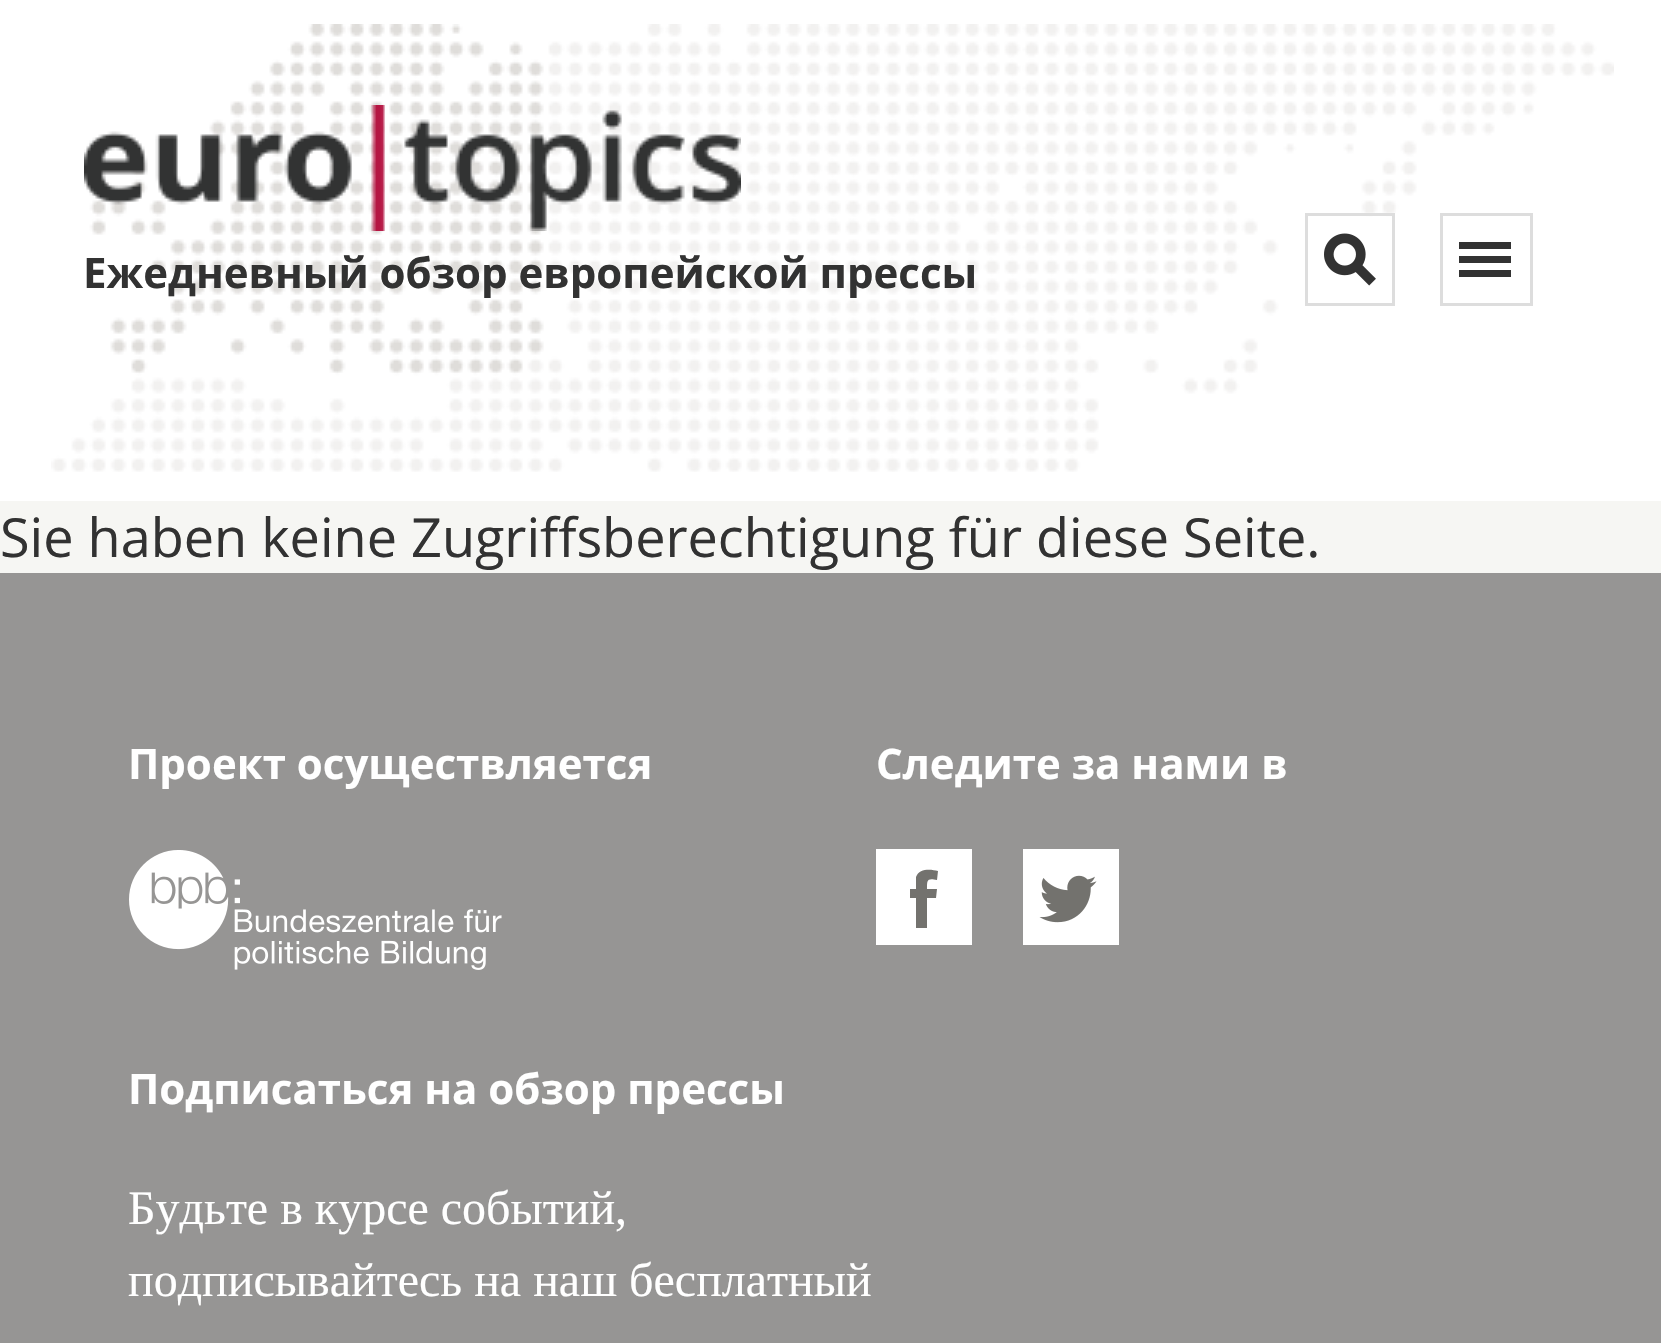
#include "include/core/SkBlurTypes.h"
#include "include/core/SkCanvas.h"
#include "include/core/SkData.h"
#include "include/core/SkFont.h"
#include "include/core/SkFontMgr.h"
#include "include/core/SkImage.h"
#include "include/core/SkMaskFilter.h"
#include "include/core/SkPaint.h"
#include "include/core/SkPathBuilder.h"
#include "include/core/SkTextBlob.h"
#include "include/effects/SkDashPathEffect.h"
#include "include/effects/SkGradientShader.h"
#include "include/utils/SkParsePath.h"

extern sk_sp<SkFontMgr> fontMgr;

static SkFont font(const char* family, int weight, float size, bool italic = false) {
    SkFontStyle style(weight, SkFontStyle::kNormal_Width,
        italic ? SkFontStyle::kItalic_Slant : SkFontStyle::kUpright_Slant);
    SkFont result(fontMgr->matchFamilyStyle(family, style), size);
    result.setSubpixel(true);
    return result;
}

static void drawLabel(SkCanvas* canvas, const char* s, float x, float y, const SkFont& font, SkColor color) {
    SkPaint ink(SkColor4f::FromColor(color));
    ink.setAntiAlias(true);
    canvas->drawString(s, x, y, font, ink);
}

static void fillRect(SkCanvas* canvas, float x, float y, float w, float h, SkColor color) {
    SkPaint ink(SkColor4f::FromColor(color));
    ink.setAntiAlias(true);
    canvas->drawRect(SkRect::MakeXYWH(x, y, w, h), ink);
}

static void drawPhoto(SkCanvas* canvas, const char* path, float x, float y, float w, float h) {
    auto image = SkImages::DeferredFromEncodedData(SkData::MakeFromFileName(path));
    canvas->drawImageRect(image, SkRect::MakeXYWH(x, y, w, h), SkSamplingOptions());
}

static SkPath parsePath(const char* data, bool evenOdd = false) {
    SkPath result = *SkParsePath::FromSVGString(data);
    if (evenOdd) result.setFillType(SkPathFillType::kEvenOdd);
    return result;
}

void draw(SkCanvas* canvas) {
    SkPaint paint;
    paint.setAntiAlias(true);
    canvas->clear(0xFFFFFFFF);
    drawPhoto(canvas, "assets/img1.png", 51, 24, 1563, 448);
    drawPhoto(canvas, "assets/img2.png", 84, 105, 657, 126);
    SkFont font1 = font("Open Sans", 700, 42);
    drawLabel(canvas, "Ежедневный обзор европейской прессы", 83, 288, font1, 0xFF323232);
    paint.setStroke(true);
    paint.setStrokeWidth(3);
    paint.setColor(0xFFDDDDDD);
    canvas->drawRect(SkRect::MakeXYWH(1306.5f, 214.5f, 87, 90), paint);
    drawPhoto(canvas, "assets/img3.png", 1324, 233, 52, 53);
    canvas->drawRect(SkRect::MakeXYWH(1441.5f, 214.5f, 90, 90), paint);
    paint.setStroke(false);
    paint.setColor(0xFF323232);
    canvas->drawPath(parsePath("M1459 242H1511V249H1459ZM1459 256H1511V263H1459ZM1459 270H1511V277H1459Z"), paint);
    fillRect(canvas, 0, 501, 1661, 72, 0xFFF6F6F3);
    SkFont font2 = font("Open Sans", 400, 54);
    drawLabel(canvas, "Sie haben keine Zugriffsberechtigung für diese Seite.", 0, 557, font2, 0xFF323232);
    fillRect(canvas, 0, 573, 1661, 770, 0xFF969594);
    drawLabel(canvas, "Проект осуществляется", 128, 779, font1, 0xFFFFFFFF);
    drawPhoto(canvas, "assets/img4.png", 129, 850, 373, 120);
    drawLabel(canvas, "Следите за нами в", 876, 779, font1, 0xFFFFFFFF);
    fillRect(canvas, 876, 849, 96, 96, 0xFFFFFFFF);
    paint.setColor(0xFF73726E);
    canvas->drawPath(parsePath("M910 889H916V877C919 868 931 869 938 871L937 880C927 878 927 880 927 889H937L936 898H927V928H916V898H910Z"), paint);
    fillRect(canvas, 1023, 849, 96, 96, 0xFFFFFFFF);
    drawPhoto(canvas, "assets/img5.png", 1039, 875, 58, 48);
    drawLabel(canvas, "Подписаться на обзор прессы", 128, 1104, font1, 0xFFFFFFFF);
    SkFont font3 = font("Liberation Serif", 400, 48);
    drawLabel(canvas, "Будьте в курсе событий,", 128, 1224, font3, 0xFFFFFFFF);
    drawLabel(canvas, "подписывайтесь на наш бесплатный", 128, 1296, font3, 0xFFFFFFFF);
}
